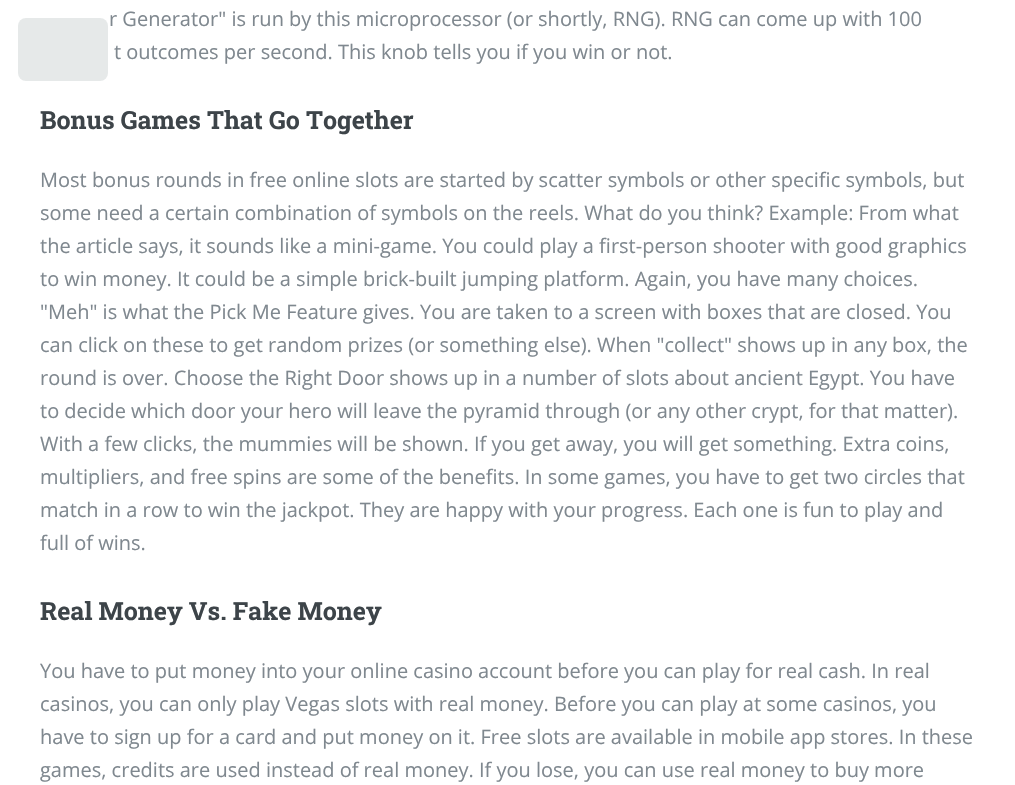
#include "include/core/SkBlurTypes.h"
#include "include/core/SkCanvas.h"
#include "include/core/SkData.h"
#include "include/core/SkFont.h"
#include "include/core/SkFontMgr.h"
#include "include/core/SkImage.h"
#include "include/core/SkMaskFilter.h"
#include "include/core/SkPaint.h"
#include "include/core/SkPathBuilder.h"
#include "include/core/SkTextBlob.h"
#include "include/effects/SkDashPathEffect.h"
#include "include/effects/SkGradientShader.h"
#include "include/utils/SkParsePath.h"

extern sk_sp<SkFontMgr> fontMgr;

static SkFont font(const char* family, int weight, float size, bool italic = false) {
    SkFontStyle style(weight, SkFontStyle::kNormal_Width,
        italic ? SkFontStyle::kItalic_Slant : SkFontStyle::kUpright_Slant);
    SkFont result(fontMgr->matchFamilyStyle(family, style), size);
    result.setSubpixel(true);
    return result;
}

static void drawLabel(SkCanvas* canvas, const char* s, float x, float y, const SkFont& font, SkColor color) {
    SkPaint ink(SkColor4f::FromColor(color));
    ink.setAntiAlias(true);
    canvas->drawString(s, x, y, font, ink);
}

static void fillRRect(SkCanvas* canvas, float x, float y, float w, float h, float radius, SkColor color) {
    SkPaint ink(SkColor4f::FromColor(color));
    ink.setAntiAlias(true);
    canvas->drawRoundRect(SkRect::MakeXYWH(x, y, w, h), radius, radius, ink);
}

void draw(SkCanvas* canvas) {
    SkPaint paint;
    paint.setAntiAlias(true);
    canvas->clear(0xFFFFFFFF);
    SkFont font1 = font("Open Sans", 400, 20);
    drawLabel(canvas, "r Generator\" is run by this microprocessor (or shortly, RNG). RNG can come up with 100", 109, 26, font1, 0xFF7F888F);
    drawLabel(canvas, "t outcomes per second. This knob tells you if you win or not.", 114, 59, font1, 0xFF7F888F);
    SkFont font2 = font("Roboto Slab", 700, 25);
    drawLabel(canvas, "Bonus Games That Go Together", 40, 129, font2, 0xFF3D4449);
    drawLabel(canvas, "Most bonus rounds in free online slots are started by scatter symbols or other specific symbols, but", 40, 187, font1, 0xFF7F888F);
    drawLabel(canvas, "some need a certain combination of symbols on the reels. What do you think? Example: From what", 40, 220, font1, 0xFF7F888F);
    drawLabel(canvas, "the article says, it sounds like a mini-game. You could play a first-person shooter with good graphics", 40, 253, font1, 0xFF7F888F);
    drawLabel(canvas, "to win money. It could be a simple brick-built jumping platform. Again, you have many choices.", 40, 286, font1, 0xFF7F888F);
    drawLabel(canvas, "\"Meh\" is what the Pick Me Feature gives. You are taken to a screen with boxes that are closed. You", 40, 319, font1, 0xFF7F888F);
    drawLabel(canvas, "can click on these to get random prizes (or something else). When \"collect\" shows up in any box, the", 40, 352, font1, 0xFF7F888F);
    drawLabel(canvas, "round is over. Choose the Right Door shows up in a number of slots about ancient Egypt. You have", 40, 385, font1, 0xFF7F888F);
    drawLabel(canvas, "to decide which door your hero will leave the pyramid through (or any other crypt, for that matter).", 40, 418, font1, 0xFF7F888F);
    drawLabel(canvas, "With a few clicks, the mummies will be shown. If you get away, you will get something. Extra coins,", 40, 451, font1, 0xFF7F888F);
    drawLabel(canvas, "multipliers, and free spins are some of the benefits. In some games, you have to get two circles that", 40, 484, font1, 0xFF7F888F);
    drawLabel(canvas, "match in a row to win the jackpot. They are happy with your progress. Each one is fun to play and", 40, 517, font1, 0xFF7F888F);
    drawLabel(canvas, "full of wins.", 40, 550, font1, 0xFF7F888F);
    drawLabel(canvas, "Real Money Vs. Fake Money", 40, 620, font2, 0xFF3D4449);
    drawLabel(canvas, "You have to put money into your online casino account before you can play for real cash. In real", 40, 678, font1, 0xFF7F888F);
    drawLabel(canvas, "casinos, you can only play Vegas slots with real money. Before you can play at some casinos, you", 40, 711, font1, 0xFF7F888F);
    drawLabel(canvas, "have to sign up for a card and put money on it. Free slots are available in mobile app stores. In these", 40, 744, font1, 0xFF7F888F);
    drawLabel(canvas, "games, credits are used instead of real money. If you lose, you can use real money to buy more", 40, 777, font1, 0xFF7F888F);
    fillRRect(canvas, 18, 18, 90, 63, 8, 0xBFDEE1E2);
}
